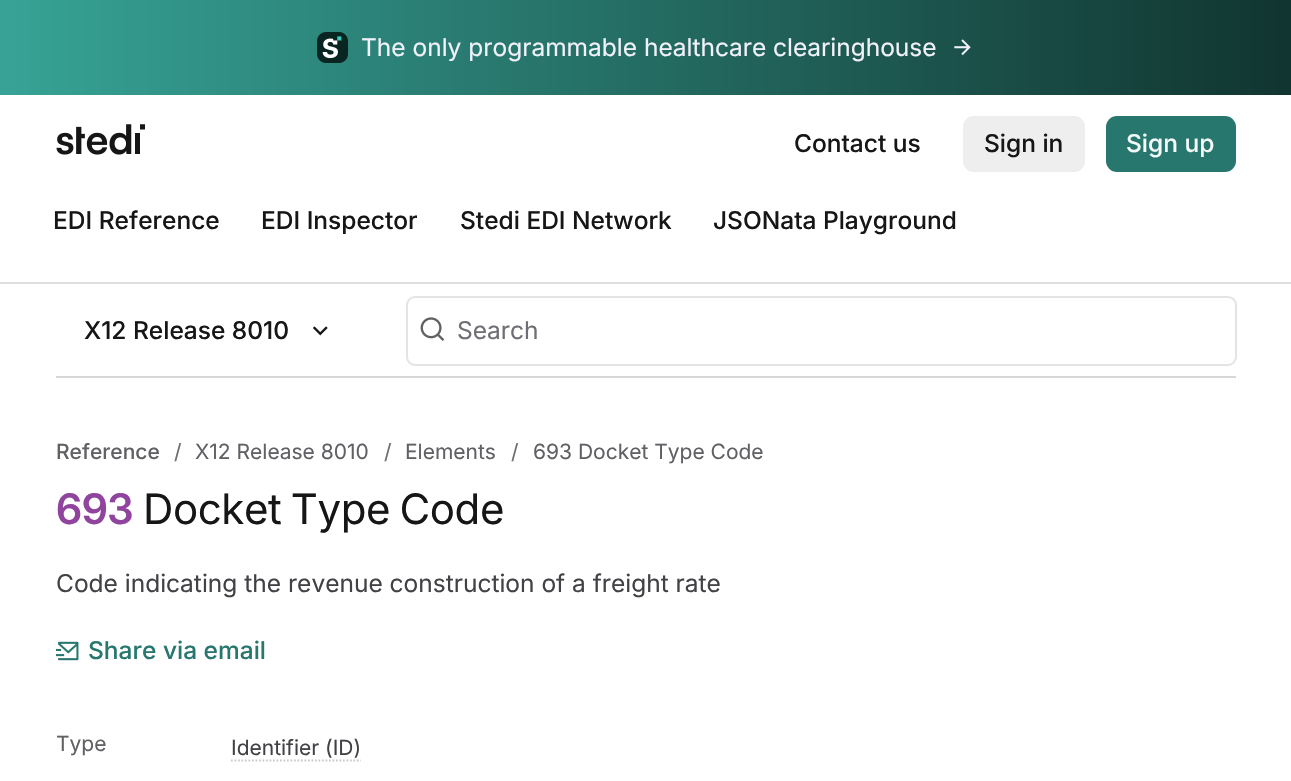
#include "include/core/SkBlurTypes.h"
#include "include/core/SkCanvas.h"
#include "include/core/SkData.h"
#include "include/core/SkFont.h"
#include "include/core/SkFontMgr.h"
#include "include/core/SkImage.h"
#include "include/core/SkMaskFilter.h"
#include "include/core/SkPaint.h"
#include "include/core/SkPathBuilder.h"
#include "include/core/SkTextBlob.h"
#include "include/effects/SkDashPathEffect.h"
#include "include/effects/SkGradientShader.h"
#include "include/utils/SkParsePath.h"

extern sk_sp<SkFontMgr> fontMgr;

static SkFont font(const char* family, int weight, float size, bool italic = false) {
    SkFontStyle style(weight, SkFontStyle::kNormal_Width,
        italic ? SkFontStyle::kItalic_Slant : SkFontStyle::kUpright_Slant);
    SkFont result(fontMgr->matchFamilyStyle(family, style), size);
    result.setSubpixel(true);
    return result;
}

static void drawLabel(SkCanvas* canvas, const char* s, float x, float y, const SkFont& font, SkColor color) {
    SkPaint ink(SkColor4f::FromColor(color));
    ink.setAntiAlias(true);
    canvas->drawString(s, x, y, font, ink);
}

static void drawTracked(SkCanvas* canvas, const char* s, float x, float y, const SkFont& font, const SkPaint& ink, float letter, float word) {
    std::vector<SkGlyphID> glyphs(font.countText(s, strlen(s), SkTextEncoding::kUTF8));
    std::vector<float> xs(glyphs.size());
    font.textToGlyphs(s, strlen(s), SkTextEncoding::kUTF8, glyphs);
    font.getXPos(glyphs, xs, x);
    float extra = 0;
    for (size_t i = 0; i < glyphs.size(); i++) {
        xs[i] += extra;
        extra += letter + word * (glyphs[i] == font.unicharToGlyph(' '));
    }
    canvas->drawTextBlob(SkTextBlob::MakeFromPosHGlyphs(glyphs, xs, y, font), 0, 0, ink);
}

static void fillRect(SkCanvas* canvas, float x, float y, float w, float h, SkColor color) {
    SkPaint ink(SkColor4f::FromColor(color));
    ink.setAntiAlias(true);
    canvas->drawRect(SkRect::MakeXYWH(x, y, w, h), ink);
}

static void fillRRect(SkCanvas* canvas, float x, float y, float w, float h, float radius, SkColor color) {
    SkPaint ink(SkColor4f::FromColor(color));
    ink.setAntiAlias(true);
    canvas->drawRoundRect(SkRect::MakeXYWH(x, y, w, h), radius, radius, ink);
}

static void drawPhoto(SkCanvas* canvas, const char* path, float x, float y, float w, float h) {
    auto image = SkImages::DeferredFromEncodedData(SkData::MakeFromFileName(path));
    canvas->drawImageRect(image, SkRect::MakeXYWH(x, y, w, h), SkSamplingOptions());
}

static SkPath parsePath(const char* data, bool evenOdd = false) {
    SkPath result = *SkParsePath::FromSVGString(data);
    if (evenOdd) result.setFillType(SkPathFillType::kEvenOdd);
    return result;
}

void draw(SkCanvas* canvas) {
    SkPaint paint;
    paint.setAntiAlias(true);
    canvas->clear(0xFFFFFFFF);
    {
        const SkColor colors[] = {0xFF37A396, 0xFF113530};
        const float stops[] = {0, 1};
        const SkPoint ends[] = {{0, 47}, {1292, 47}};
        paint.setShader(SkGradientShader::MakeLinear(ends, colors, stops, 2, SkTileMode::kClamp));
        paint.setAlpha(255);
    }
    canvas->drawRect(SkRect::MakeXYWH(0, 0, 1291, 95), paint);
    drawPhoto(canvas, "assets/img1.png", 317, 32, 31, 31);
    SkFont font1 = font("Inter", 400, 24.5f);
    drawLabel(canvas, "The only programmable healthcare clearinghouse", 361, 56, font1, 0xFFF1F1FA);
    drawPhoto(canvas, "assets/img2.png", 954, 39, 17, 17);
    fillRect(canvas, 0, 282, 1291, 2, 0xFFDEDEE0);
    drawPhoto(canvas, "assets/img3.png", 56, 124, 89, 31);
    SkFont font2 = font("Inter", 500, 24.5f);
    drawLabel(canvas, "Contact us", 794, 152, font2, 0xFF161617);
    fillRRect(canvas, 963, 116, 122, 56, 11, 0xFFEEEEEF);
    drawLabel(canvas, "Sign in", 984, 152, font2, 0xFF161617);
    fillRRect(canvas, 1106, 116, 130, 56, 11, 0xFF27776E);
    drawLabel(canvas, "Sign up", 1126, 152, font2, 0xFFF5FAF9);
    drawLabel(canvas, "EDI Reference", 53, 229, font2, 0xFF161617);
    drawLabel(canvas, "EDI Inspector", 261, 229, font2, 0xFF161617);
    drawLabel(canvas, "Stedi EDI Network", 460, 229, font2, 0xFF161617);
    drawLabel(canvas, "JSONata Playground", 713, 229, font2, 0xFF161617);
    fillRect(canvas, 56, 376, 1180, 2, 0xFFD7D7D9);
    drawLabel(canvas, "X12 Release 8010", 84, 339, font2, 0xFF161617);
    drawPhoto(canvas, "assets/img4.png", 313, 326, 15, 10);
    paint.setStroke(true);
    paint.setStrokeWidth(2);
    paint.setShader(nullptr);
    paint.setColor(0xFFE4E4E6);
    canvas->drawRoundRect(SkRect::MakeXYWH(407, 297, 829, 68), 8, 8, paint);
    drawPhoto(canvas, "assets/img5.png", 420, 317, 25, 24);
    drawLabel(canvas, "Search", 457, 339, font1, 0xFF6E6E74);
    SkFont font3 = font("Inter", 500, 21);
    drawLabel(canvas, "Reference", 56, 459, font3, 0xFF606065);
    SkFont font4 = font("Inter", 400, 21);
    drawLabel(canvas, "/", 174, 459, font4, 0xFF6E6E74);
    drawLabel(canvas, "X12 Release 8010", 195, 459, font4, 0xFF606065);
    drawLabel(canvas, "/", 384, 459, font4, 0xFF6E6E74);
    drawLabel(canvas, "Elements", 405, 459, font4, 0xFF606065);
    drawLabel(canvas, "/", 511, 459, font4, 0xFF6E6E74);
    drawLabel(canvas, "693 Docket Type Code", 533, 459, font4, 0xFF606065);
    SkFont font5 = font("Inter", 600, 42);
    paint.setStroke(false);
    paint.setColor(0xFF91449D);
    drawTracked(canvas, "693", 56, 524, font5, paint, -0.4f, 0);
    SkFont font6 = font("Inter", 400, 42);
    paint.setColor(0xFF161617);
    drawTracked(canvas, "Docket Type Code", 143, 524, font6, paint, -0.4f, -2);
    drawLabel(canvas, "Code indicating the revenue construction of a freight rate", 56, 592, font1, 0xFF424246);
    drawPhoto(canvas, "assets/img6.png", 56, 641, 23, 20);
    drawLabel(canvas, "Share via email", 88, 659, font2, 0xFF27776E);
    drawLabel(canvas, "Type", 56, 751, font4, 0xFF606065);
    drawLabel(canvas, "Identifier (ID)", 231, 755, font4, 0xFF424246);
    paint.setStroke(true);
    paint.setStrokeWidth(1.8f);
    paint.setColor(0xFFCACACB);
    paint.setPathEffect(SkDashPathEffect::Make({{1.75f, 1.75f}}, 0));
    canvas->drawPath(parsePath("M231 760.5H361"), paint);
    paint.setPathEffect(nullptr);
}
